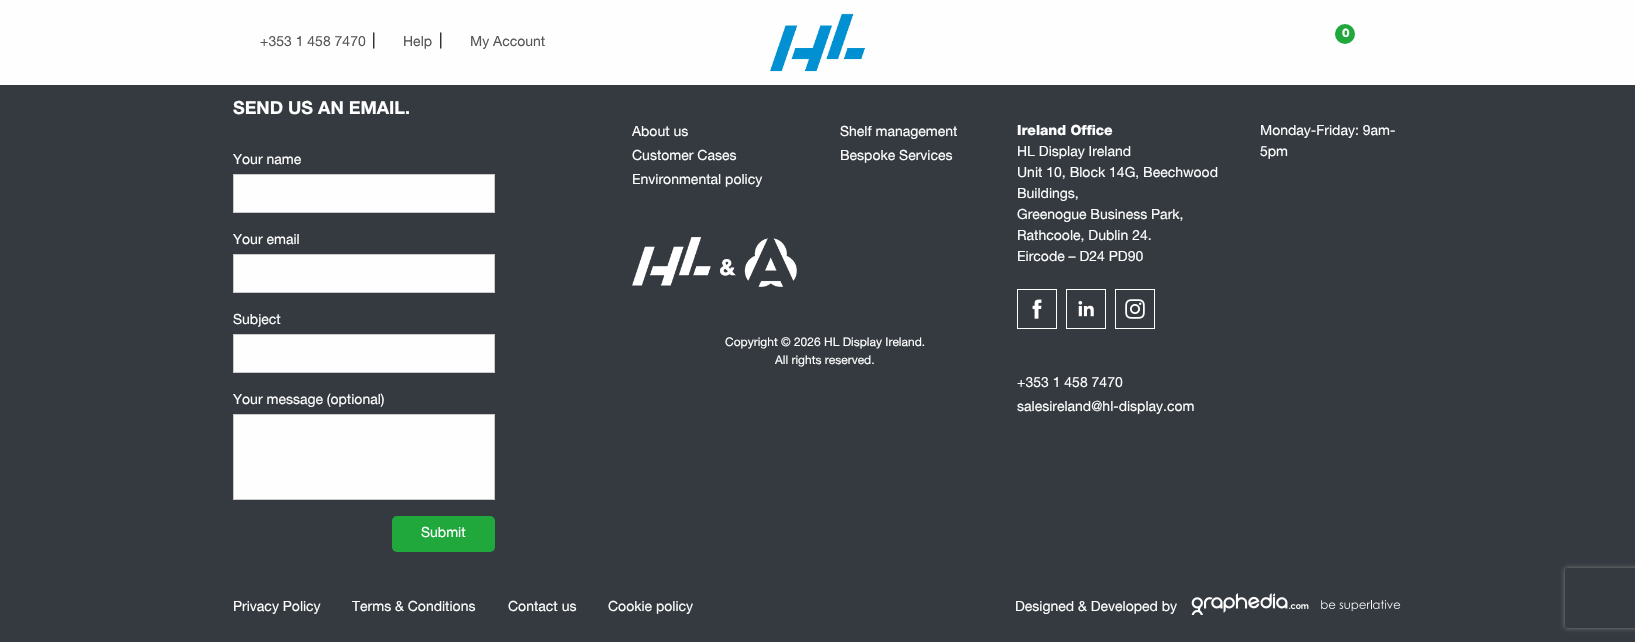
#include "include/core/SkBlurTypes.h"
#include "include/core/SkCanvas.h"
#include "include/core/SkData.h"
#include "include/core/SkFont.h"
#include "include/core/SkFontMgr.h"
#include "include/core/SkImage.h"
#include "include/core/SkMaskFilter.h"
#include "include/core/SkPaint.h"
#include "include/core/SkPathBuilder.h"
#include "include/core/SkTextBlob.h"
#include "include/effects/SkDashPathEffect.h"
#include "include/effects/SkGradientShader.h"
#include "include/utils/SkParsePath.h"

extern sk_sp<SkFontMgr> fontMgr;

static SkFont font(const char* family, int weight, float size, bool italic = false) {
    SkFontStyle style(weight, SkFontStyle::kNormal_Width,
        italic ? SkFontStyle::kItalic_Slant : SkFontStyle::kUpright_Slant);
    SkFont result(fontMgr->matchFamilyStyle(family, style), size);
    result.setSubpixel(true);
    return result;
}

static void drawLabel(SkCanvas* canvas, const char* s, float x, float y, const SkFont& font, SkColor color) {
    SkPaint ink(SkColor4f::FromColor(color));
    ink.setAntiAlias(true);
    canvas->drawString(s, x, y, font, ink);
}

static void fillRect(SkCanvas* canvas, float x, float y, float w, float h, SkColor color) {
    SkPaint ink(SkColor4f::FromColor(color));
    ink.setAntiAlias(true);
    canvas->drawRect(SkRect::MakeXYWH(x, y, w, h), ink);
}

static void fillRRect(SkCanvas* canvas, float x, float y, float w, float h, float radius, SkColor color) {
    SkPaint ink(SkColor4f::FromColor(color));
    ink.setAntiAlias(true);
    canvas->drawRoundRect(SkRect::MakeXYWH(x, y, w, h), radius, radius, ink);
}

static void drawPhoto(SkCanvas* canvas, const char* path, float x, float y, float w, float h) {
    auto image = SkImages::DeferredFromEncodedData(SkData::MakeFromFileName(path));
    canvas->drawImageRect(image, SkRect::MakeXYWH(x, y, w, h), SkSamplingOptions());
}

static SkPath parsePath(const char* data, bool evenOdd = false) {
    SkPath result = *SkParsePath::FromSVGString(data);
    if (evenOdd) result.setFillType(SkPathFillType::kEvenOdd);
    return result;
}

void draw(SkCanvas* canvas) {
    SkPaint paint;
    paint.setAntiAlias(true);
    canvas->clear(0xFF343A40);
    fillRect(canvas, 0, 0, 1635, 85, 0xFFFEFEFE);
    SkFont font1 = font("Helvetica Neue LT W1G", 400, 14);
    drawLabel(canvas, "+353 1 458 7470", 260, 46, font1, 0xFF575757);
    SkFont font2 = font("Helvetica Neue LT W1G", 400, 16);
    drawLabel(canvas, "|", 372, 45, font2, 0xFF0A0A0A);
    drawLabel(canvas, "Help", 403, 46, font1, 0xFF575757);
    drawLabel(canvas, "|", 439, 45, font2, 0xFF0A0A0A);
    drawLabel(canvas, "My Account", 470, 46, font1, 0xFF575757);
    drawPhoto(canvas, "assets/img1.png", 770, 13, 95, 59);
    paint.setColor(0xFF20A83D);
    canvas->drawCircle(1345, 34, 10, paint);
    SkFont font3 = font("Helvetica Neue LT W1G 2", 700, 12);
    drawLabel(canvas, "0", 1342, 37, font3, 0xFFFEFEFE);
    SkFont font4 = font("Helvetica Neue LT W1G", 700, 18);
    drawLabel(canvas, "SEND US AN EMAIL.", 233, 114, font4, 0xFFFEFEFE);
    drawLabel(canvas, "Your name", 233, 164, font1, 0xFFFEFEFE);
    paint.setColor(0xFFFEFEFE);
    canvas->drawRect(SkRect::MakeXYWH(233.5f, 174.5f, 261, 38), paint);
    paint.setStroke(true);
    paint.setStrokeWidth(1);
    paint.setColor(0xFFCACACA);
    canvas->drawRect(SkRect::MakeXYWH(233.5f, 174.5f, 261, 38), paint);
    drawLabel(canvas, "Your email", 233, 244, font1, 0xFFFEFEFE);
    paint.setStroke(false);
    paint.setColor(0xFFFEFEFE);
    canvas->drawRect(SkRect::MakeXYWH(233.5f, 254.5f, 261, 38), paint);
    paint.setStroke(true);
    paint.setColor(0xFFCACACA);
    canvas->drawRect(SkRect::MakeXYWH(233.5f, 254.5f, 261, 38), paint);
    drawLabel(canvas, "Subject", 233, 324, font1, 0xFFFEFEFE);
    paint.setStroke(false);
    paint.setColor(0xFFFEFEFE);
    canvas->drawRect(SkRect::MakeXYWH(233.5f, 334.5f, 261, 38), paint);
    paint.setStroke(true);
    paint.setColor(0xFFCACACA);
    canvas->drawRect(SkRect::MakeXYWH(233.5f, 334.5f, 261, 38), paint);
    drawLabel(canvas, "Your message (optional)", 233, 404, font1, 0xFFFEFEFE);
    paint.setStroke(false);
    paint.setColor(0xFFFEFEFE);
    canvas->drawRect(SkRect::MakeXYWH(233.5f, 414.5f, 261, 85), paint);
    paint.setStroke(true);
    paint.setColor(0xFFCACACA);
    canvas->drawRect(SkRect::MakeXYWH(233.5f, 414.5f, 261, 85), paint);
    fillRRect(canvas, 392, 516, 103, 36, 5, 0xFF20A83D);
    drawLabel(canvas, "Submit", 421, 537, font1, 0xFFFEFEFE);
    drawLabel(canvas, "About us", 632, 136, font1, 0xFFFEFEFE);
    drawLabel(canvas, "Customer Cases", 632, 160, font1, 0xFFFEFEFE);
    drawLabel(canvas, "Environmental policy", 632, 184, font1, 0xFFFEFEFE);
    drawLabel(canvas, "Shelf management", 840, 136, font1, 0xFFFEFEFE);
    drawLabel(canvas, "Bespoke Services", 840, 160, font1, 0xFFFEFEFE);
    drawPhoto(canvas, "assets/img2.png", 632, 237, 165, 50);
    SkFont font5 = font("Helvetica Neue LT W1G", 400, 12);
    drawLabel(canvas, "Copyright © 2026 HL Display Ireland.", 725, 346, font5, 0xFFFEFEFE);
    drawLabel(canvas, "All rights reserved.", 775, 364, font5, 0xFFFEFEFE);
    SkFont font6 = font("Helvetica Neue LT W1G 2", 700, 14);
    drawLabel(canvas, "Ireland Office", 1017, 135, font6, 0xFFFEFEFE);
    drawLabel(canvas, "HL Display Ireland", 1017, 156, font1, 0xFFFEFEFE);
    drawLabel(canvas, "Unit 10, Block 14G, Beechwood", 1017, 177, font1, 0xFFFEFEFE);
    drawLabel(canvas, "Buildings,", 1017, 198, font1, 0xFFFEFEFE);
    drawLabel(canvas, "Greenogue Business Park,", 1017, 219, font1, 0xFFFEFEFE);
    drawLabel(canvas, "Rathcoole, Dublin 24.", 1017, 240, font1, 0xFFFEFEFE);
    drawLabel(canvas, "Eircode – D24 PD90", 1017, 261, font1, 0xFFFEFEFE);
    paint.setColor(0xFFFFFFFF);
    canvas->drawRect(SkRect::MakeXYWH(1017.5f, 289.5f, 39, 39), paint);
    canvas->drawRect(SkRect::MakeXYWH(1066.5f, 289.5f, 39, 39), paint);
    canvas->drawRect(SkRect::MakeXYWH(1115.5f, 289.5f, 39, 39), paint);
    drawPhoto(canvas, "assets/img3.png", 1032, 299, 10, 20);
    drawPhoto(canvas, "assets/img4.png", 1078, 300, 16, 17);
    drawPhoto(canvas, "assets/img5.png", 1125, 299, 20, 20);
    drawLabel(canvas, "+353 1 458 7470", 1017, 387, font1, 0xFFFEFEFE);
    drawLabel(canvas, "salesireland@hl-display.com", 1017, 411, font1, 0xFFFEFEFE);
    drawLabel(canvas, "Monday-Friday: 9am-", 1260, 135, font1, 0xFFFEFEFE);
    drawLabel(canvas, "5pm", 1260, 156, font1, 0xFFFEFEFE);
    drawLabel(canvas, "Privacy Policy", 233, 611, font1, 0xFFFEFEFE);
    drawLabel(canvas, "Terms & Conditions", 352, 611, font1, 0xFFFEFEFE);
    drawLabel(canvas, "Contact us", 508, 611, font1, 0xFFFEFEFE);
    drawLabel(canvas, "Cookie policy", 608, 611, font1, 0xFFFEFEFE);
    drawLabel(canvas, "Designed & Developed by", 1015, 611, font1, 0xFFFEFEFE);
    drawPhoto(canvas, "assets/img6.png", 1191, 593, 210, 22);
    canvas->save();
    canvas->clipPath(parsePath("M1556 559H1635V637H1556ZM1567 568H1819C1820 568 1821 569 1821 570V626C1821 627 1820 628 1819 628H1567C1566 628 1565 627 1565 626V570C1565 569 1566 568 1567 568Z", true), true);
    paint.setStroke(false);
    paint.setColor(0xFF808080);
    paint.setMaskFilter(SkMaskFilter::MakeBlur(kNormal_SkBlurStyle, 2.5f));
    canvas->drawRoundRect(SkRect::MakeXYWH(1565, 568, 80, 60), 2, 2, paint);
    paint.setMaskFilter(nullptr);
    canvas->restore();
}
